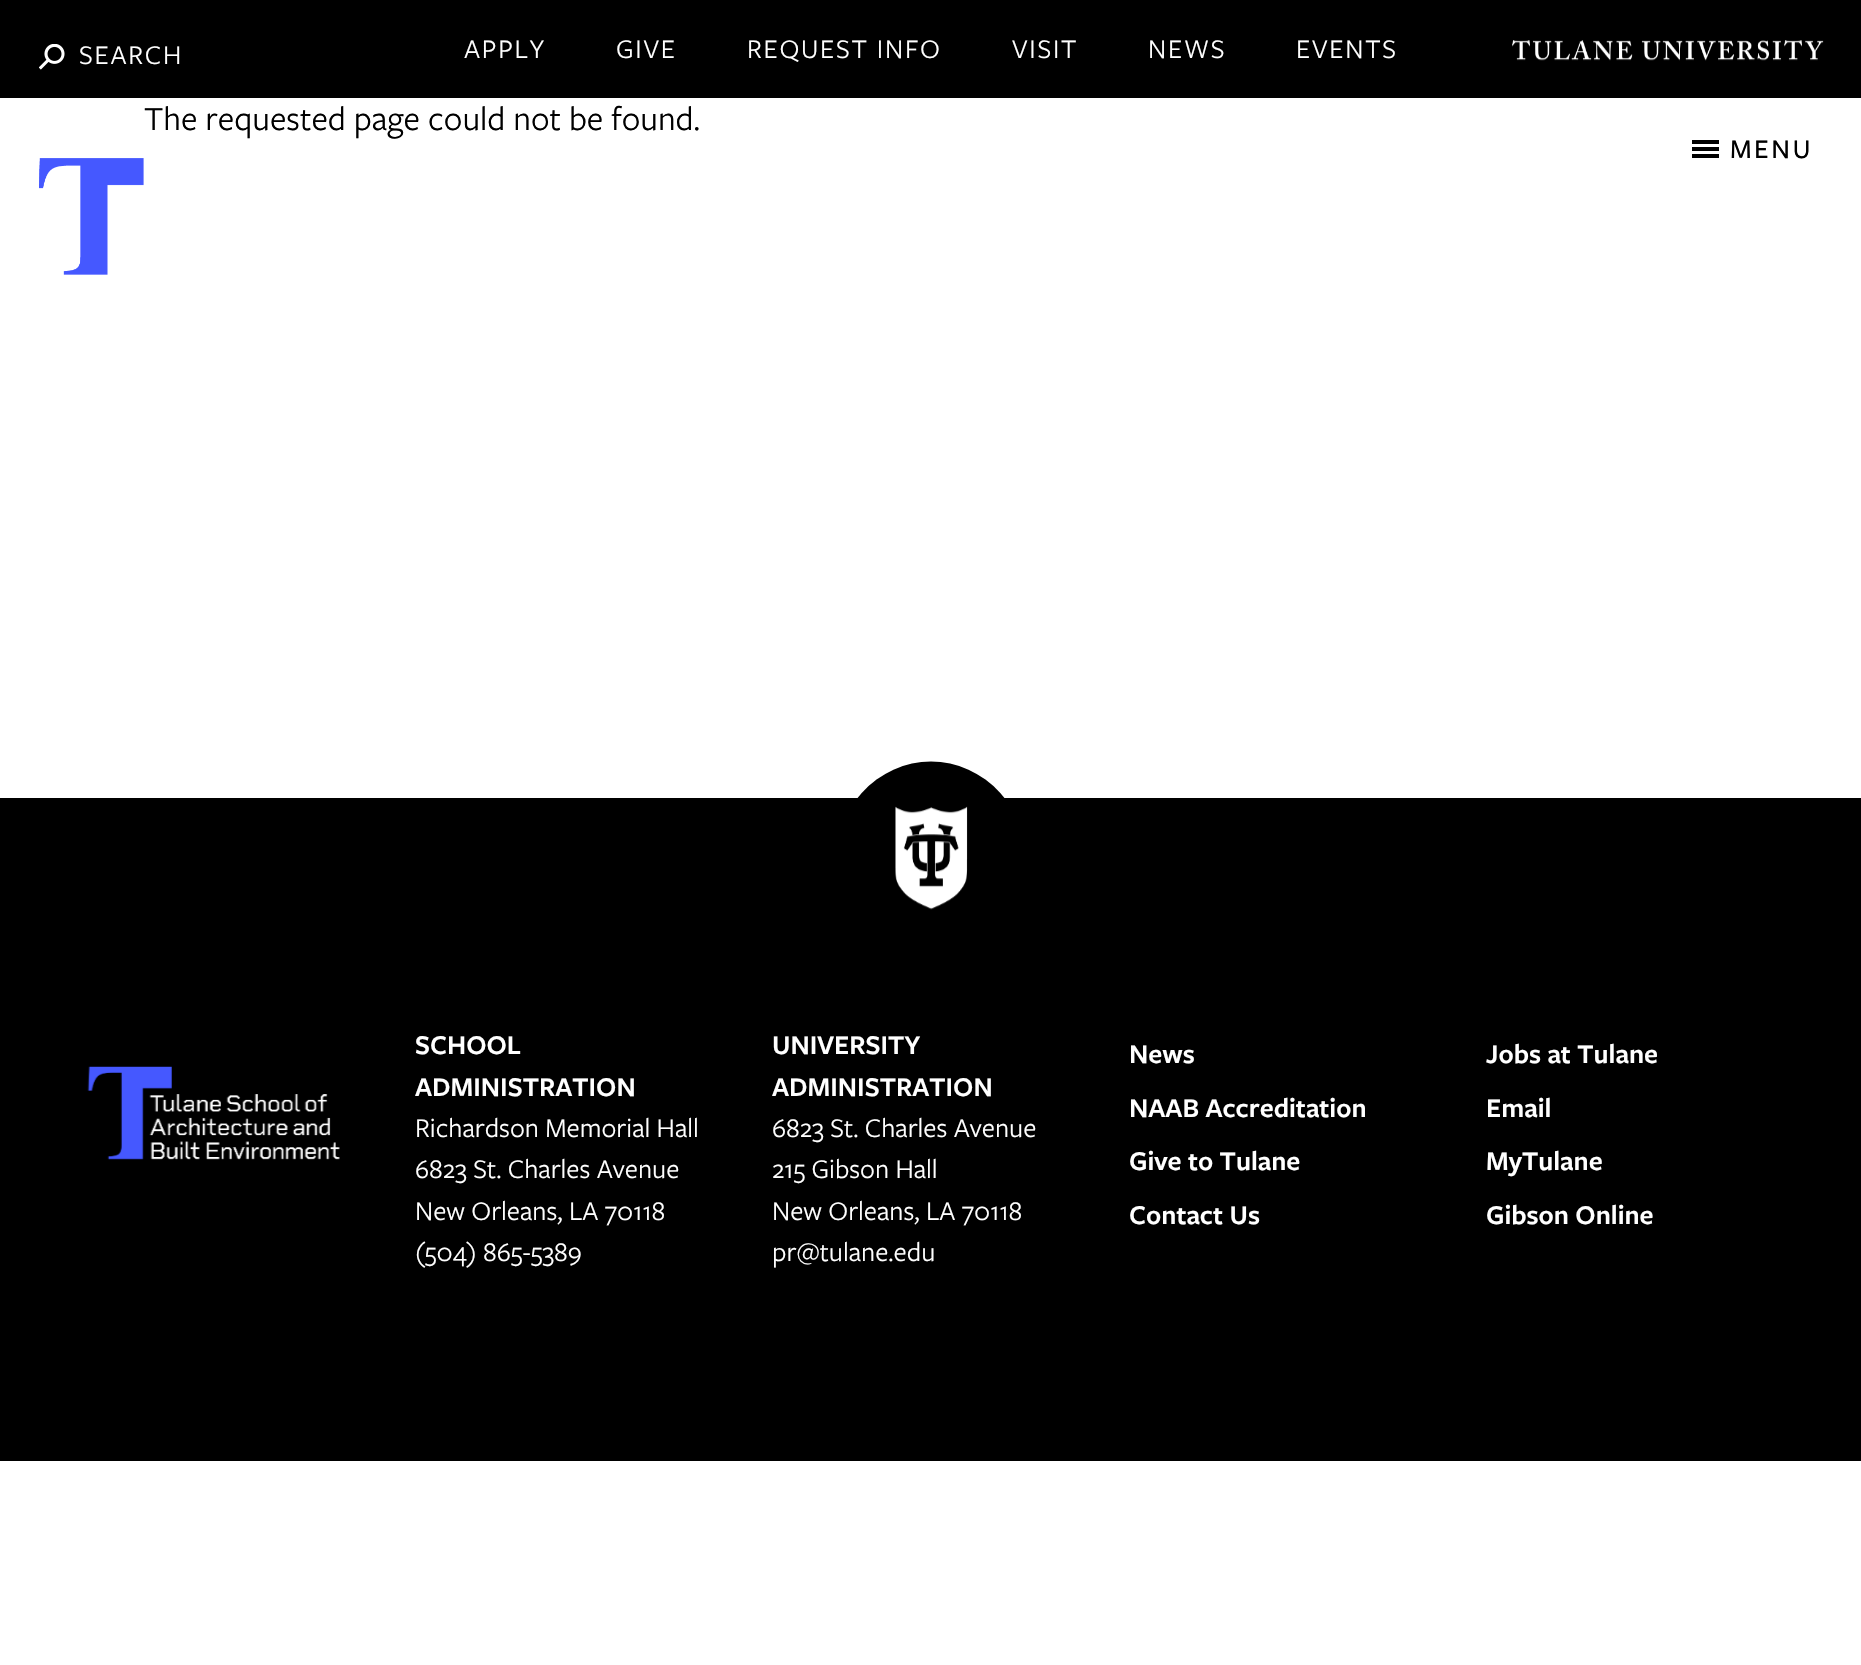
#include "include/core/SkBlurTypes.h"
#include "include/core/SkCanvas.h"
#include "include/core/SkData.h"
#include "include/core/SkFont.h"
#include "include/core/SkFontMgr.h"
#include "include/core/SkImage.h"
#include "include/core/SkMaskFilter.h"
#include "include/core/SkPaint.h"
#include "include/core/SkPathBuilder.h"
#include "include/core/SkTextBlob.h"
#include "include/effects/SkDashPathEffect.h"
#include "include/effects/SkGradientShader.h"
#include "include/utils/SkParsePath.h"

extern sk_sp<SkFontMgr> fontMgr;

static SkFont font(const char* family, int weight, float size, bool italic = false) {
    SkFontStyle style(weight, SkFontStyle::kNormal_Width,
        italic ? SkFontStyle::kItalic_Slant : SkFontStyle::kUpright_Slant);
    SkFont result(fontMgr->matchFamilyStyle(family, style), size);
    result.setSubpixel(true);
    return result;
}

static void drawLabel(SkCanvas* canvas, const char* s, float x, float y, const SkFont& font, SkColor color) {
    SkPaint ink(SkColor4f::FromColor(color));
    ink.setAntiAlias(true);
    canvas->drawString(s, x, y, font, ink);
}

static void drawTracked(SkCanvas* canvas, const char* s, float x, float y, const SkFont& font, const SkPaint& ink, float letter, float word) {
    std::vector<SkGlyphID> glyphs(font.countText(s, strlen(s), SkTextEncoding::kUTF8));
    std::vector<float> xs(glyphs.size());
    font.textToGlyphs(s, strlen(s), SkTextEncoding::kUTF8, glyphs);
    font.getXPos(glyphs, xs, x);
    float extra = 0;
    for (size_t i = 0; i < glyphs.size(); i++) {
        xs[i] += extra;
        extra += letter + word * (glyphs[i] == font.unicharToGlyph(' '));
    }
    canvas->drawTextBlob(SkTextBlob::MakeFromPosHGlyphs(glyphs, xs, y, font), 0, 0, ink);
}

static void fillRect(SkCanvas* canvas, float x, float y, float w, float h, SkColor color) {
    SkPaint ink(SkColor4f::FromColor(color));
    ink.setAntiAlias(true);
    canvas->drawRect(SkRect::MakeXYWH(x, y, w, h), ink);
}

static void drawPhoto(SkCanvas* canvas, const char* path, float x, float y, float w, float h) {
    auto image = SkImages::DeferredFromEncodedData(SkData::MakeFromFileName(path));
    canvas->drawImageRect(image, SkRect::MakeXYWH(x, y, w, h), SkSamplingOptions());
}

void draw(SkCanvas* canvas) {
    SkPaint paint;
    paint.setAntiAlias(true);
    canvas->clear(0xFFFFFFFF);
    fillRect(canvas, 0, 0, 1861, 98, 0xFF000000);
    drawPhoto(canvas, "assets/img1.png", 39, 44, 26, 26);
    SkFont font1 = font("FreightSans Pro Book", 400, 28);
    paint.setColor(0xFFFFFFFF);
    drawTracked(canvas, "SEARCH", 79, 64, font1, paint, 1.75f, 0);
    drawTracked(canvas, "APPLY", 464, 58, font1, paint, 1.75f, 0);
    drawTracked(canvas, "GIVE", 616, 58, font1, paint, 1.75f, 0);
    drawTracked(canvas, "REQUEST INFO", 747, 58, font1, paint, 1.75f, 0);
    drawTracked(canvas, "VISIT", 1012, 58, font1, paint, 1.75f, 0);
    drawTracked(canvas, "NEWS", 1148, 58, font1, paint, 1.75f, 0);
    drawTracked(canvas, "EVENTS", 1296, 58, font1, paint, 1.75f, 0);
    drawPhoto(canvas, "assets/img2.png", 1512, 40, 312, 21);
    SkFont font2 = font("FreightSans Pro Book", 400, 35);
    drawLabel(canvas, "The requested page could not be found.", 144, 130, font2, 0xFF000000);
    fillRect(canvas, 0, 798, 1861, 663, 0xFF000000);
    paint.setColor(0xFF000000);
    canvas->drawOval(SkRect::MakeXYWH(833, 761.5f, 196, 215), paint);
    drawPhoto(canvas, "assets/img3.png", 895, 806, 73, 104);
    drawPhoto(canvas, "assets/img4.png", 87, 1066, 253, 94);
    SkFont font3 = font("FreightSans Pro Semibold", 600, 28);
    drawLabel(canvas, "SCHOOL", 415, 1054, font3, 0xFFFFFFFF);
    drawLabel(canvas, "ADMINISTRATION", 415, 1096, font3, 0xFFFFFFFF);
    drawLabel(canvas, "Richardson Memorial Hall", 415, 1137, font1, 0xFFFFFFFF);
    drawLabel(canvas, "6823 St. Charles Avenue", 415, 1178, font1, 0xFFFFFFFF);
    drawLabel(canvas, "New Orleans, LA 70118", 415, 1220, font1, 0xFFFFFFFF);
    drawLabel(canvas, "(504) 865-5389", 415, 1261, font1, 0xFFFFFFFF);
    drawLabel(canvas, "UNIVERSITY", 772, 1054, font3, 0xFFFFFFFF);
    drawLabel(canvas, "ADMINISTRATION", 772, 1096, font3, 0xFFFFFFFF);
    drawLabel(canvas, "6823 St. Charles Avenue", 772, 1137, font1, 0xFFFFFFFF);
    drawLabel(canvas, "215 Gibson Hall", 772, 1178, font1, 0xFFFFFFFF);
    drawLabel(canvas, "New Orleans, LA 70118", 772, 1220, font1, 0xFFFFFFFF);
    drawLabel(canvas, "pr@tulane.edu", 772, 1261, font1, 0xFFFFFFFF);
    drawLabel(canvas, "News", 1129, 1063, font3, 0xFFFFFFFF);
    drawLabel(canvas, "NAAB Accreditation", 1129, 1117, font3, 0xFFFFFFFF);
    drawLabel(canvas, "Give to Tulane", 1129, 1170, font3, 0xFFFFFFFF);
    drawLabel(canvas, "Contact Us", 1129, 1224, font3, 0xFFFFFFFF);
    drawLabel(canvas, "Jobs at Tulane", 1486, 1063, font3, 0xFFFFFFFF);
    drawLabel(canvas, "Email", 1486, 1117, font3, 0xFFFFFFFF);
    drawLabel(canvas, "MyTulane", 1486, 1170, font3, 0xFFFFFFFF);
    drawLabel(canvas, "Gibson Online", 1486, 1224, font3, 0xFFFFFFFF);
    fillRect(canvas, 1692, 147, 27, 4, 0xFF000000);
    fillRect(canvas, 1692, 140, 27, 4, 0xFF000000);
    fillRect(canvas, 1692, 154, 27, 4, 0xFF000000);
    SkFont font4 = font("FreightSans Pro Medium", 500, 28);
    drawTracked(canvas, "MENU", 1730, 158, font4, paint, 2.5f, 0);
    drawPhoto(canvas, "assets/img5.png", 39, 158, 105, 117);
}
